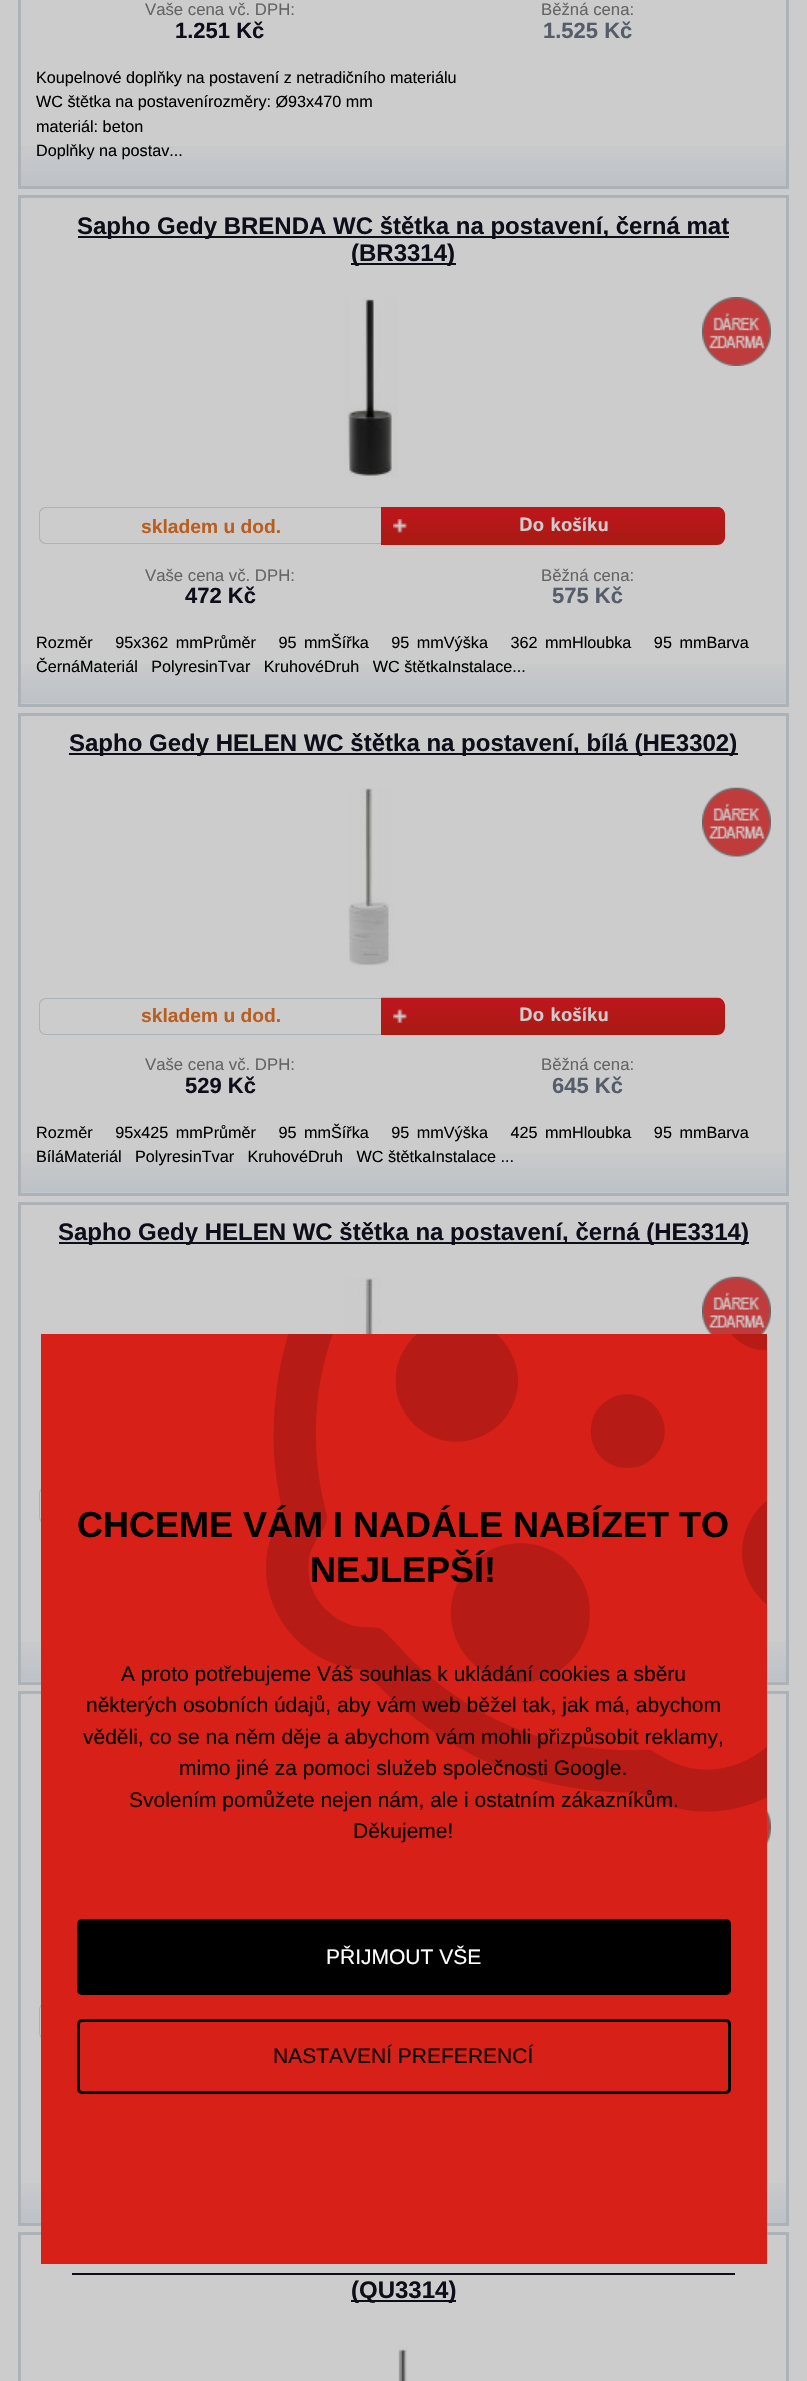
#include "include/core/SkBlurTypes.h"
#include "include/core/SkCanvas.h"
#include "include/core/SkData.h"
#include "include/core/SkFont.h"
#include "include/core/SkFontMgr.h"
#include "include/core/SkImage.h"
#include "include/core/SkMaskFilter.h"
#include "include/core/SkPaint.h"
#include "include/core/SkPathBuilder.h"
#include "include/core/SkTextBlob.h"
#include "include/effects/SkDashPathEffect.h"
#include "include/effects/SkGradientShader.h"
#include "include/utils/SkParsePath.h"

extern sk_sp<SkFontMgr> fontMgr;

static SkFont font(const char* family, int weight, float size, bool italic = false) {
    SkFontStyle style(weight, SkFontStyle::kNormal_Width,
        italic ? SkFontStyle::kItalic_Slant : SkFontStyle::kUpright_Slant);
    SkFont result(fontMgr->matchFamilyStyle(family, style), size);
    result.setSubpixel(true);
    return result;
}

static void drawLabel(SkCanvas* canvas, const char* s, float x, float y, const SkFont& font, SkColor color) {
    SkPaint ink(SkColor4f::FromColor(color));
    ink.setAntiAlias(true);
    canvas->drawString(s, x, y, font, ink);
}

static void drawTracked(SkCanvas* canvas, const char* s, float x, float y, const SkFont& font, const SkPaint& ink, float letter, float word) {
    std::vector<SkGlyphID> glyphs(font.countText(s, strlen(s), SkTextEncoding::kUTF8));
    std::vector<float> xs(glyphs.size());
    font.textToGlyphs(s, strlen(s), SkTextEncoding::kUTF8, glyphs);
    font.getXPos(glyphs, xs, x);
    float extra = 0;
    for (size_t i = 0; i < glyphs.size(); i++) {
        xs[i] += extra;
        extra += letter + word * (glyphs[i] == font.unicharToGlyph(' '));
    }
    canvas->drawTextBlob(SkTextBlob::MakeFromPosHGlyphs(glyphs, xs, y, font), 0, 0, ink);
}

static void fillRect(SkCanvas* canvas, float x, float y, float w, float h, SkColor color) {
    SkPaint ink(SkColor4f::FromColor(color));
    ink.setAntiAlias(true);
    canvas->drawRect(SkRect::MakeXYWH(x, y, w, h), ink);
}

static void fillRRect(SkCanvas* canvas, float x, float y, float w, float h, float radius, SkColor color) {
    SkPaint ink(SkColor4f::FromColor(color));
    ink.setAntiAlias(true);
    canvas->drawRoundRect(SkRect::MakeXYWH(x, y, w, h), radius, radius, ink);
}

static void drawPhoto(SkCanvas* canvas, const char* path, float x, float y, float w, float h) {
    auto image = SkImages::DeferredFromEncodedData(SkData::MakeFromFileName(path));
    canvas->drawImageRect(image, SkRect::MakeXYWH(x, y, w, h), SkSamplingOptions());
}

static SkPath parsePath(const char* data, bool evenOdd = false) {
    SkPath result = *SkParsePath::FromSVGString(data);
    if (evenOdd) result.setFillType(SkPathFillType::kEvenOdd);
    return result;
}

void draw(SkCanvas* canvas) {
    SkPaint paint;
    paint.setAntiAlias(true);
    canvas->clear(0xFFCCCCCC);
    drawPhoto(canvas, "assets/img1.png", 21, 146, 765, 40);
    paint.setStroke(true);
    paint.setStrokeWidth(3);
    paint.setColor(0xFFABB2B8);
    canvas->drawRect(SkRect::MakeXYWH(19.5f, -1.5f, 768, 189), paint);
    SkFont font1 = font("Liberation Sans", 400, 16.75f);
    drawLabel(canvas, "Vaše cena vč. DPH:", 145, 15, font1, 0xFF646464);
    SkFont font2 = font("Liberation Sans", 700, 22);
    drawLabel(canvas, "1.251 Kč", 175, 38, font2, 0xFF0E0E1A);
    drawLabel(canvas, "Běžná cena:", 541, 15, font1, 0xFF646464);
    drawLabel(canvas, "1.525 Kč", 543, 38, font2, 0xFF565D6A);
    SkFont font3 = font("Liberation Sans", 400, 16.2f);
    drawLabel(canvas, "Koupelnové doplňky na postavení z netradičního materiálu", 36, 83, font3, 0xFF000000);
    drawLabel(canvas, "WC štětka na postavenírozměry: Ø93x470 mm", 36, 107, font3, 0xFF000000);
    drawLabel(canvas, "materiál: beton", 36, 132, font3, 0xFF000000);
    drawLabel(canvas, "Doplňky na postav...", 36, 156, font3, 0xFF000000);
    drawPhoto(canvas, "assets/img2.png", 21, 664, 765, 40);
    canvas->drawRect(SkRect::MakeXYWH(19.5f, 196.5f, 768, 509), paint);
    fillRect(canvas, 78, 236, 651, 2, 0xFF0E0E1A);
    SkFont font4 = font("Liberation Sans", 700, 24);
    drawLabel(canvas, "Sapho Gedy BRENDA WC štětka na postavení, černá mat", 77, 234, font4, 0xFF0E0E1A);
    fillRect(canvas, 351, 263, 105, 2, 0xFF0E0E1A);
    drawLabel(canvas, "(BR3314)", 351, 261, font4, 0xFF0E0E1A);
    drawPhoto(canvas, "assets/img3.png", 344, 297, 54, 180);
    drawPhoto(canvas, "assets/img4.png", 702, 297, 69, 69);
    paint.setStroke(false);
    canvas->drawPath(parsePath("M46 507H381V544H46C42 544 39 541 39 537V514C39 510 42 507 46 507ZM46 508H381V543H46C43 543 40 540 40 537V514C40 511 43 508 46 508Z", true), paint);
    SkFont font5 = font("Liberation Sans", 700, 19.25f);
    drawLabel(canvas, "skladem u dod.", 141, 533, font5, 0xFFBA5E20);
    paint.setColor(0xFFAB1A13);
    canvas->drawPath(parsePath("M381 507H717C721.5 507 725 510.5 725 515V537C725 541.5 721.5 545 717 545H381Z"), paint);
    drawPhoto(canvas, "assets/img5.png", 381, 507, 344, 36);
    drawPhoto(canvas, "assets/img6.png", 393, 519, 14, 14);
    SkFont font6 = font("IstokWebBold", 700, 19.25f);
    drawLabel(canvas, "Do košíku", 519, 531, font6, 0xFFCCCCCC);
    drawLabel(canvas, "Vaše cena vč. DPH:", 145, 581, font1, 0xFF646464);
    drawLabel(canvas, "472 Kč", 185, 603, font2, 0xFF0E0E1A);
    drawLabel(canvas, "Běžná cena:", 541, 581, font1, 0xFF646464);
    drawLabel(canvas, "575 Kč", 552, 603, font2, 0xFF565D6A);
    paint.setColor(0xFF000000);
    drawTracked(canvas, "Rozměr   95x362 mmPrůměr   95 mmŠířka   95 mmVýška   362 mmHloubka   95 mmBarva", 36, 648, font3, paint, 0, 3);
    drawLabel(canvas, "ČernáMateriál   PolyresinTvar   KruhovéDruh   WC štětkaInstalace...", 36, 672, font3, 0xFF000000);
    drawPhoto(canvas, "assets/img2.png", 21, 1153, 765, 40);
    paint.setStroke(true);
    paint.setColor(0xFFABB2B8);
    canvas->drawRect(SkRect::MakeXYWH(19.5f, 714.5f, 768, 480), paint);
    fillRect(canvas, 69, 753, 669, 2, 0xFF0E0E1A);
    drawLabel(canvas, "Sapho Gedy HELEN WC štětka na postavení, bílá (HE3302)", 69, 751, font4, 0xFF0E0E1A);
    drawPhoto(canvas, "assets/img7.png", 348, 788, 45, 178);
    drawPhoto(canvas, "assets/img8.png", 702, 787, 69, 70);
    paint.setStroke(false);
    canvas->drawPath(parsePath("M46 998H381V1035H46C42 1035 39 1032 39 1028V1005C39 1001 42 998 46 998ZM46 999H381V1034H46C43 1034 40 1031 40 1028V1005C40 1002 43 999 46 999Z", true), paint);
    drawLabel(canvas, "skladem u dod.", 141, 1022, font5, 0xFFBA5E20);
    paint.setColor(0xFFAB1A13);
    canvas->drawPath(parsePath("M381 998H717C721.5 998 725 1001.5 725 1006V1027C725 1031.5 721.5 1035 717 1035H381Z"), paint);
    drawPhoto(canvas, "assets/img9.png", 381, 997, 344, 37);
    drawPhoto(canvas, "assets/img10.png", 393, 1009, 14, 14);
    drawLabel(canvas, "Do košíku", 519, 1021, font6, 0xFFCCCCCC);
    drawLabel(canvas, "Vaše cena vč. DPH:", 145, 1070, font1, 0xFF646464);
    drawLabel(canvas, "529 Kč", 185, 1093, font2, 0xFF0E0E1A);
    drawLabel(canvas, "Běžná cena:", 541, 1070, font1, 0xFF646464);
    drawLabel(canvas, "645 Kč", 552, 1093, font2, 0xFF565D6A);
    paint.setColor(0xFF000000);
    drawTracked(canvas, "Rozměr   95x425 mmPrůměr   95 mmŠířka   95 mmVýška   425 mmHloubka   95 mmBarva", 36, 1138, font3, paint, 0, 3);
    drawLabel(canvas, "BíláMateriál   PolyresinTvar   KruhovéDruh   WC štětkaInstalace ...", 36, 1162, font3, 0xFF000000);
    drawPhoto(canvas, "assets/img2.png", 21, 1642, 765, 40);
    paint.setStroke(true);
    paint.setColor(0xFFABB2B8);
    canvas->drawRect(SkRect::MakeXYWH(19.5f, 1203.5f, 768, 480), paint);
    fillRect(canvas, 59, 1242, 690, 2, 0xFF0E0E1A);
    drawLabel(canvas, "Sapho Gedy HELEN WC štětka na postavení, černá (HE3314)", 58, 1240, font4, 0xFF0E0E1A);
    drawPhoto(canvas, "assets/img11.png", 345, 1277, 48, 57);
    drawPhoto(canvas, "assets/img12.png", 702, 1276, 69, 58);
    paint.setStroke(false);
    canvas->drawPath(parsePath("M46 1486H381V1524H46C42 1524 39 1521 39 1516V1494C39 1490 42 1486 46 1486ZM46 1488H381V1522H46C43 1522 40 1520 40 1516V1494C40 1491 43 1488 46 1488Z", true), paint);
    drawPhoto(canvas, "assets/img1.png", 21, 2183, 765, 40);
    paint.setStroke(true);
    canvas->drawRect(SkRect::MakeXYWH(19.5f, 1692.5f, 768, 532), paint);
    drawPhoto(canvas, "assets/img13.png", 767, 1810, 4, 34);
    paint.setStroke(false);
    canvas->drawPath(parsePath("M46 2002H381V2040H46C42 2040 39 2037 39 2032V2010C39 2006 42 2002 46 2002ZM46 2004H381V2038H46C43 2038 40 2036 40 2032V2010C40 2007 43 2004 46 2004Z", true), paint);
    paint.setStroke(true);
    canvas->drawRect(SkRect::MakeXYWH(19.5f, 2233.5f, 768, 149), paint);
    fillRect(canvas, 351, 2300, 105, 2, 0xFF0E0E1A);
    drawLabel(canvas, "(QU3314)", 351, 2298, font4, 0xFF0E0E1A);
    fillRect(canvas, 72, 2273, 663, 2, 0xFF0E0E1A);
    drawPhoto(canvas, "assets/img14.png", 398, 2346, 10, 35);
    fillRect(canvas, 41, 1334, 726, 930, 0xFFD62018);
    drawPhoto(canvas, "assets/img15.png", 266, 1334, 501, 478);
    SkFont font7 = font("Liberation Sans", 700, 36);
    drawLabel(canvas, "CHCEME VÁM I NADÁLE NABÍZET TO", 77, 1537, font7, 0xFF000000);
    drawLabel(canvas, "NEJLEPŠÍ!", 310, 1582, font7, 0xFF000000);
    SkFont font8 = font("Liberation Sans", 400, 21);
    drawLabel(canvas, "A proto potřebujeme Váš souhlas k ukládání cookies a sběru", 121, 1681, font8, 0xFF000000);
    drawLabel(canvas, "některých osobních údajů, aby vám web běžel tak, jak má, abychom", 86, 1712, font8, 0xFF000000);
    drawLabel(canvas, "věděli, co se na něm děje a abychom vám mohli přizpůsobit reklamy,", 83, 1744, font8, 0xFF000000);
    drawLabel(canvas, "mimo jiné za pomoci služeb společnosti Google.", 179, 1775, font8, 0xFF000000);
    drawLabel(canvas, "Svolením pomůžete nejen nám, ale i ostatním zákazníkům.", 129, 1807, font8, 0xFF000000);
    drawLabel(canvas, "Děkujeme!", 353, 1838, font8, 0xFF000000);
    fillRRect(canvas, 77, 1919, 654, 76, 5, 0xFF000000);
    drawLabel(canvas, "PŘIJMOUT VŠE", 326, 1964, font8, 0xFFFFFFFF);
    paint.setColor(0xFF000000);
    canvas->drawRoundRect(SkRect::MakeXYWH(78.5f, 2020.5f, 651, 72), 3.5f, 3.5f, paint);
    drawLabel(canvas, "NASTAVENÍ PREFERENCÍ", 273, 2063, font8, 0xFF000000);
}
